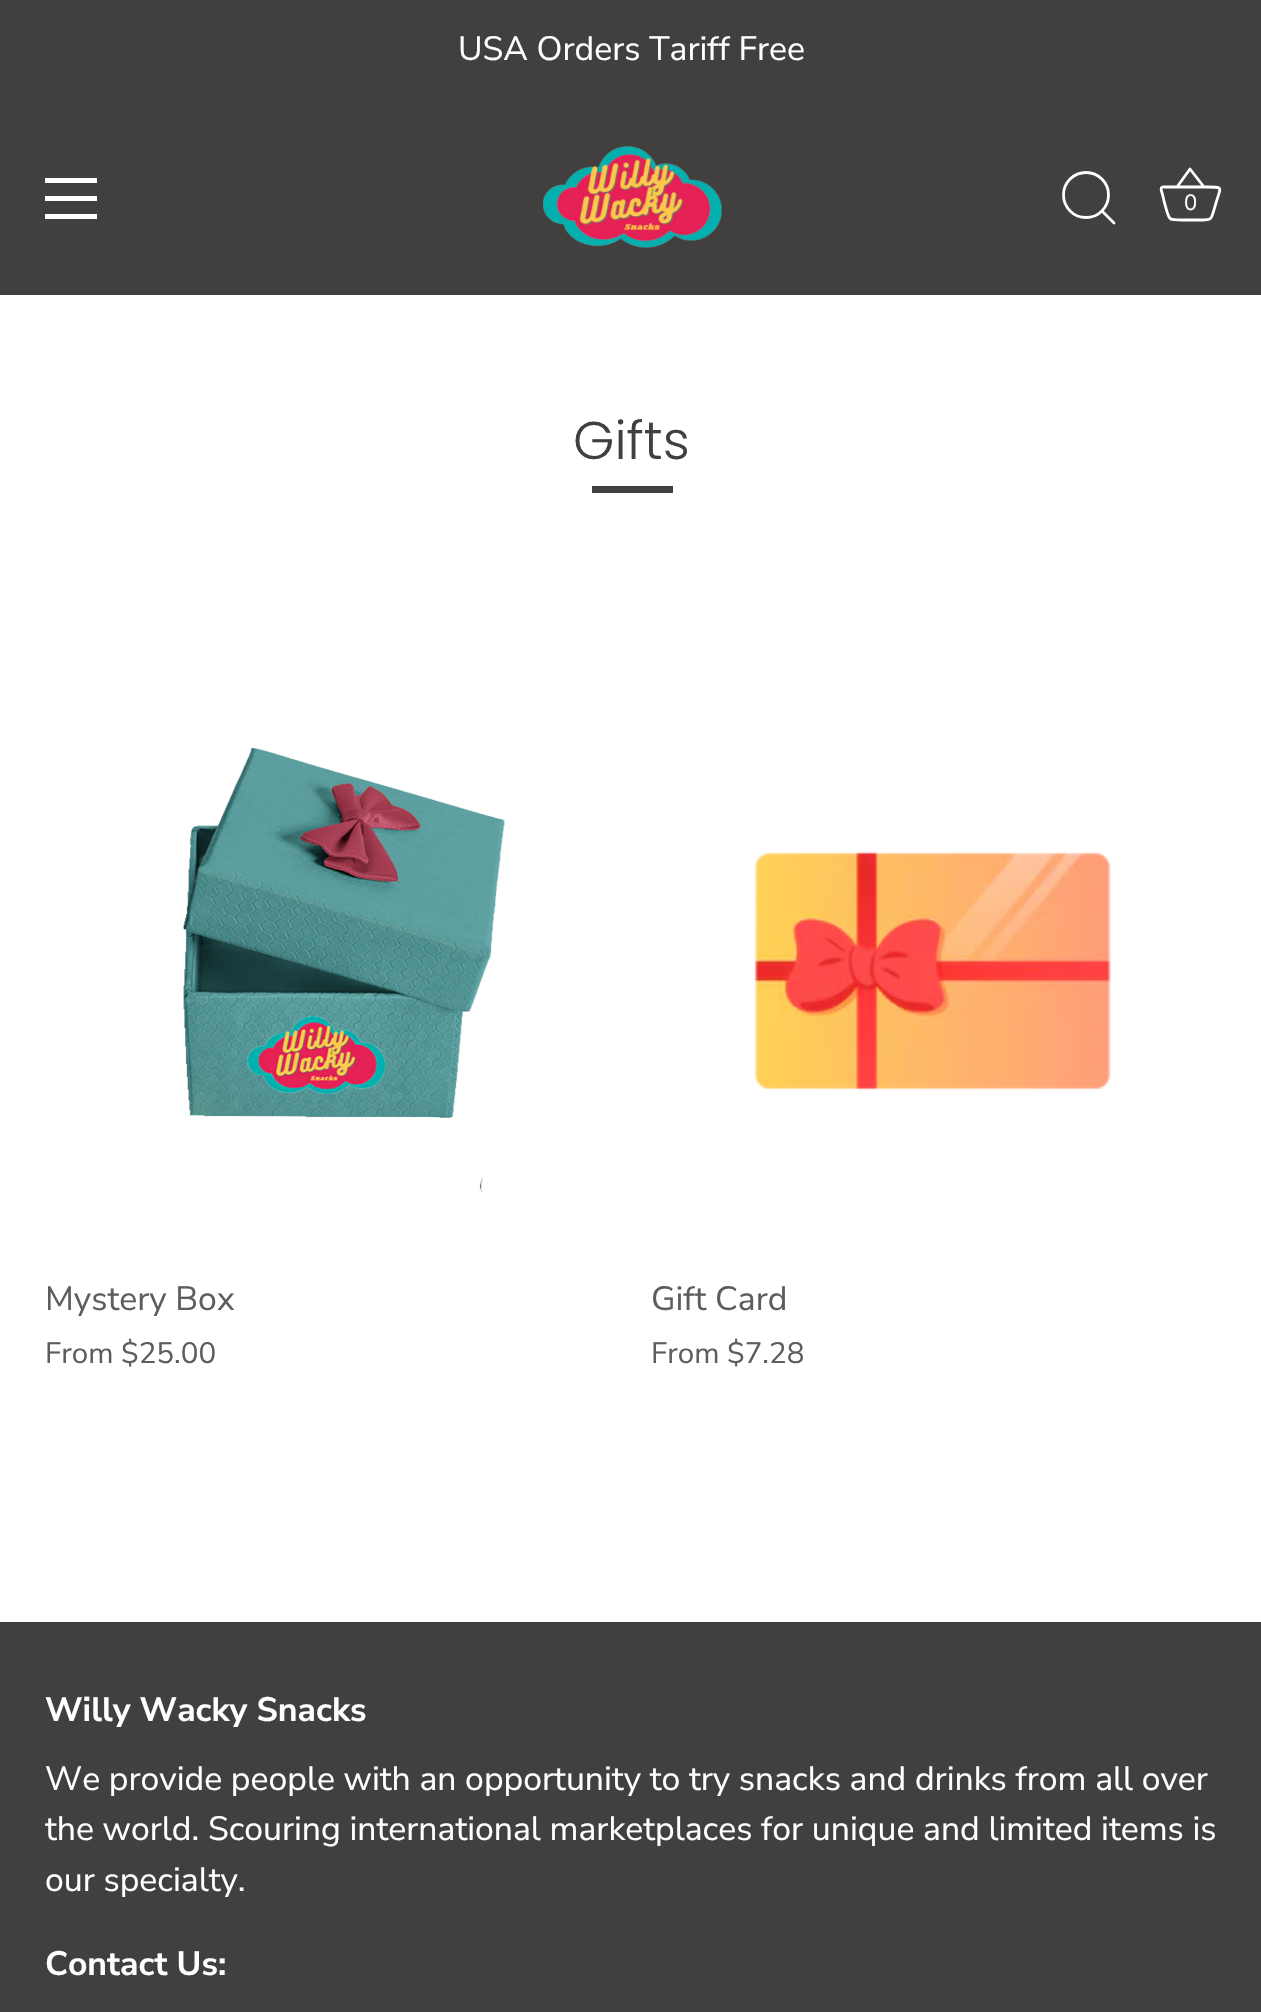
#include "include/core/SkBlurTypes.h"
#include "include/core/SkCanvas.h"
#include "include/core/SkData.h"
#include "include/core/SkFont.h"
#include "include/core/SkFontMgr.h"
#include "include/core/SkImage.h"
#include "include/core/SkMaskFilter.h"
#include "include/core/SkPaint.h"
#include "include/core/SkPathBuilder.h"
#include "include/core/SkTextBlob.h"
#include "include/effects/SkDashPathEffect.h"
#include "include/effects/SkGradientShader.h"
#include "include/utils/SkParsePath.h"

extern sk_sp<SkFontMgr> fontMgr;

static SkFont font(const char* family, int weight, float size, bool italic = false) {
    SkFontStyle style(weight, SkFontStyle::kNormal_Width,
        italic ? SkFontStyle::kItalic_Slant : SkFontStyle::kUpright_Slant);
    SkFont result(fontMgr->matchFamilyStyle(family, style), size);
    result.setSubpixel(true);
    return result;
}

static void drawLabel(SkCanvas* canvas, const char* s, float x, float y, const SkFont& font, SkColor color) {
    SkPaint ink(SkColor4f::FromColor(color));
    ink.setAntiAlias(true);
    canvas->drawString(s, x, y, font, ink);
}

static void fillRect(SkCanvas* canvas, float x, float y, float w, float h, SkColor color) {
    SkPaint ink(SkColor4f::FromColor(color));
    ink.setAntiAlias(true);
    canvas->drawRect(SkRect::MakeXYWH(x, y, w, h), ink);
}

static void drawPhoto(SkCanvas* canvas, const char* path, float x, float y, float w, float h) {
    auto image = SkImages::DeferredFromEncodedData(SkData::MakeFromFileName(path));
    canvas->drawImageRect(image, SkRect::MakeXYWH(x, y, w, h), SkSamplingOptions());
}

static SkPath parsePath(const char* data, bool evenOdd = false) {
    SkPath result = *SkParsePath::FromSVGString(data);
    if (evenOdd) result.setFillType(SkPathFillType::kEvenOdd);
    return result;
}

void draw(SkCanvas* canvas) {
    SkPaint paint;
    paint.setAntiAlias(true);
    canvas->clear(0xFFFFFFFF);
    fillRect(canvas, 0, 0, 1261, 295, 0xFF423F3F);
    SkFont font1 = font("Nunito Sans", 400, 33.75f);
    drawLabel(canvas, "USA Orders Tariff Free", 458, 60, font1, 0xFFFFFFFF);
    fillRect(canvas, 45, 178, 52, 5, 0xFFFFFFFF);
    fillRect(canvas, 45, 196, 52, 5, 0xFFFFFFFF);
    fillRect(canvas, 45, 214, 52, 5, 0xFFFFFFFF);
    drawPhoto(canvas, "assets/img1.png", 543, 146, 179, 102);
    paint.setStroke(true);
    paint.setStrokeWidth(2.8f);
    paint.setColor(0xFFFFFFFF);
    canvas->drawCircle(1086, 195, 22.5f, paint);
    paint.setStrokeCap(SkPaint::kRound_Cap);
    paint.setStrokeJoin(SkPaint::kRound_Join);
    canvas->drawPath(parsePath("M1114 223L1102 211"), paint);
    paint.setStrokeCap(SkPaint::kButt_Cap);
    canvas->drawPath(parsePath("M1164 187C1159 186.5 1162 192.5 1162.5 194.5L1164.5 203C1170 221 1166.5 220 1185 220H1201C1210 220 1211 220.5 1213.5 211.5L1216 203C1220.5 187 1224 187 1208 187H1164M1177 187L1190 169L1204 187"), paint);
    SkFont font2 = font("Nunito Sans", 400, 22);
    drawLabel(canvas, "0", 1184, 210, font2, 0xFFFFFFFF);
    SkFont font3 = font("Poppins", 300, 53);
    drawLabel(canvas, "Gifts", 573, 459, font3, 0xFF423F3F);
    fillRect(canvas, 592, 486, 81, 7, 0xFF423F3F);
    drawPhoto(canvas, "assets/img2.png", 183, 748, 322, 445);
    drawLabel(canvas, "Mystery Box", 45, 1310, font1, 0xFF5E5C5C);
    SkFont font4 = font("Nunito Sans", 400, 29.5f);
    drawLabel(canvas, "From $25.00", 45, 1363, font4, 0xFF5E5C5C);
    drawPhoto(canvas, "assets/img3.png", 754, 851, 357, 240);
    drawLabel(canvas, "Gift Card", 651, 1310, font1, 0xFF5E5C5C);
    drawLabel(canvas, "From $7.28", 651, 1363, font4, 0xFF5E5C5C);
    fillRect(canvas, 0, 1622, 1261, 390, 0xFF423F3F);
    SkFont font5 = font("Nunito Sans", 700, 33.75f);
    drawLabel(canvas, "Willy Wacky Snacks", 45, 1721, font5, 0xFFFFFFFF);
    drawLabel(canvas, "We provide people with an opportunity to try snacks and drinks from all over", 45, 1790, font1, 0xFFFFFFFF);
    drawLabel(canvas, "the world. Scouring international marketplaces for unique and limited items is", 45, 1840, font1, 0xFFFFFFFF);
    drawLabel(canvas, "our specialty.", 45, 1891, font1, 0xFFFFFFFF);
    drawLabel(canvas, "Contact Us:", 45, 1975, font5, 0xFFFFFFFF);
}
